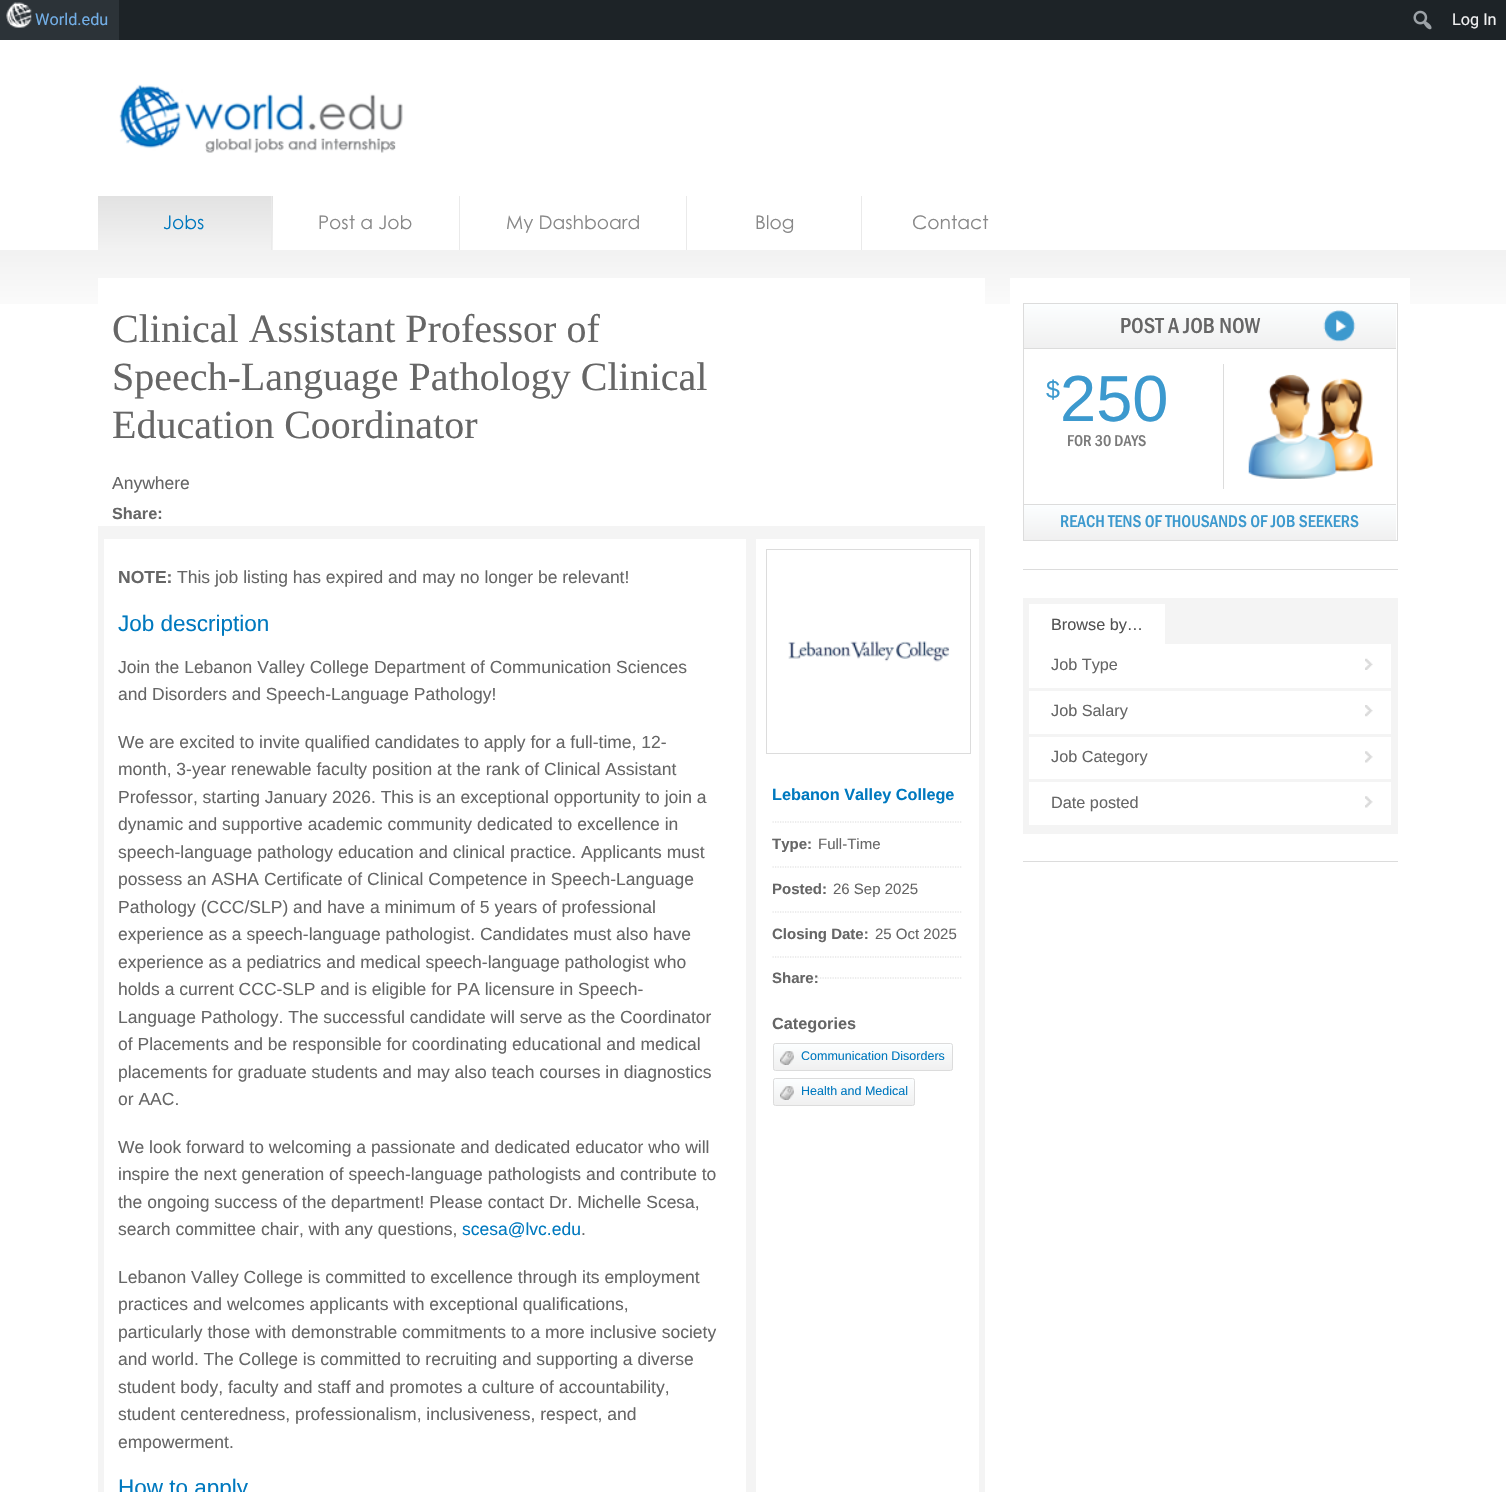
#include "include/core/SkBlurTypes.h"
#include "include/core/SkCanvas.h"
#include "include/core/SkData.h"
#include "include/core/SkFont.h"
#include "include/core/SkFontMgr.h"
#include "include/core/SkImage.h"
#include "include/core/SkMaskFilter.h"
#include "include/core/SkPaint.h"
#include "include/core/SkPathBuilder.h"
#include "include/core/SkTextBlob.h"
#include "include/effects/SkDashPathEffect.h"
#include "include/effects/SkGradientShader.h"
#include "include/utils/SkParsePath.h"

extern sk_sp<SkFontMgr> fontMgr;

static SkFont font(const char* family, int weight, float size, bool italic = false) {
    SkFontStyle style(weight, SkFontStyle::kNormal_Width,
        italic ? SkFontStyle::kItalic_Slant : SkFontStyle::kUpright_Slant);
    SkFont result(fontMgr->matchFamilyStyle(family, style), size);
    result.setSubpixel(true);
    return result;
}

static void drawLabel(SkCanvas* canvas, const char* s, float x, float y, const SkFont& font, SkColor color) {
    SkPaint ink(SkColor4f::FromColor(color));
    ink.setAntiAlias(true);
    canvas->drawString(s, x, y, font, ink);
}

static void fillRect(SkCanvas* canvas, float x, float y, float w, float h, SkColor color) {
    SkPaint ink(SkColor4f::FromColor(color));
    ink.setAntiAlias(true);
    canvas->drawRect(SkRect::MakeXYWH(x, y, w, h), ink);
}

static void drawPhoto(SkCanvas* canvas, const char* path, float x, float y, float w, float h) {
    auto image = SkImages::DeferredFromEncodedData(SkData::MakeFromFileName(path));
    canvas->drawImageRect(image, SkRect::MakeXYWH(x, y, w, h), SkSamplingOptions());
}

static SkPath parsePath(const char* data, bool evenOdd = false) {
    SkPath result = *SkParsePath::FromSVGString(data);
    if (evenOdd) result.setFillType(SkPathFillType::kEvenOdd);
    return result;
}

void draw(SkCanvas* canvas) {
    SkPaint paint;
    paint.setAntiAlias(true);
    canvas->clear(0xFFFFFFFF);
    fillRect(canvas, 119, 0, 1387, 40, 0xFF1D2327);
    drawPhoto(canvas, "assets/img1.png", 1413, 10, 19, 20);
    fillRect(canvas, 0, 0, 119, 40, 0xFF2C3338);
    drawPhoto(canvas, "assets/img2.png", 6, 2, 26, 26);
    SkFont font1 = font("Roboto", 400, 16.25f);
    drawLabel(canvas, "World.edu", 35, 25, font1, 0xFF72AEE6);
    drawLabel(canvas, "Log In", 1452, 25, font1, 0xFFF0F0F1);
    drawPhoto(canvas, "assets/img3.png", 119, 84, 284, 69);
    {
        const SkColor colors[] = {0xFFE2E2E2, 0xFFF2F2F2};
        const float stops[] = {0, 1};
        const SkPoint ends[] = {{98, 196}, {98, 250}};
        paint.setShader(SkGradientShader::MakeLinear(ends, colors, stops, 2, SkTileMode::kClamp));
        paint.setAlpha(255);
    }
    canvas->drawRect(SkRect::MakeXYWH(98, 196, 175, 54), paint);
    fillRect(canvas, 271, 196, 1, 54, 0xFFEAEAEA);
    SkFont font2 = font("Century Gothic", 400, 18.75f);
    drawLabel(canvas, "Jobs", 163, 229, font2, 0xFF0079BF);
    fillRect(canvas, 459, 196, 1, 54, 0xFFEAEAEA);
    drawLabel(canvas, "Post a Job", 318, 229, font2, 0xFF888888);
    fillRect(canvas, 686, 196, 1, 54, 0xFFEAEAEA);
    drawLabel(canvas, "My Dashboard", 506, 229, font2, 0xFF888888);
    fillRect(canvas, 861, 196, 1, 54, 0xFFEAEAEA);
    drawLabel(canvas, "Blog", 755, 229, font2, 0xFF888888);
    drawLabel(canvas, "Contact", 912, 229, font2, 0xFF888888);
    drawPhoto(canvas, "assets/img4.png", 0, 250, 1506, 54);
    fillRect(canvas, 98, 278, 887, 26, 0xFFFFFFFF);
    SkFont font3 = font("Liberation Serif", 400, 40);
    drawLabel(canvas, "Clinical Assistant Professor of", 112, 342, font3, 0xFF666666);
    drawLabel(canvas, "Speech-Language Pathology Clinical", 112, 390, font3, 0xFF666666);
    drawLabel(canvas, "Education Coordinator", 112, 438, font3, 0xFF666666);
    SkFont font4 = font("Liberation Sans", 400, 17.5f);
    drawLabel(canvas, "Anywhere", 112, 489, font4, 0xFF666666);
    SkFont font5 = font("Liberation Sans", 700, 16.25f);
    drawLabel(canvas, "Share:", 112, 519, font5, 0xFF666666);
    fillRect(canvas, 104, 526, 875, 13, 0xFFF4F4F4);
    fillRect(canvas, 979, 526, 6, 966, 0xFFF4F4F4);
    fillRect(canvas, 98, 526, 6, 966, 0xFFF4F4F4);
    fillRect(canvas, 746, 539, 10, 953, 0xFFF4F4F4);
    SkFont font6 = font("Liberation Sans", 700, 17.5f);
    drawLabel(canvas, "NOTE:", 118, 583, font6, 0xFF666666);
    drawLabel(canvas, "This job listing has expired and may no longer be relevant!", 177, 583, font4, 0xFF666666);
    SkFont font7 = font("Liberation Sans", 400, 22.5f);
    drawLabel(canvas, "Job description", 118, 631, font7, 0xFF0079BF);
    drawLabel(canvas, "Join the Lebanon Valley College Department of Communication Sciences", 118, 673, font4, 0xFF666666);
    drawLabel(canvas, "and Disorders and Speech-Language Pathology!", 118, 700, font4, 0xFF666666);
    drawLabel(canvas, "We are excited to invite qualified candidates to apply for a full-time, 12-", 118, 748, font4, 0xFF666666);
    drawLabel(canvas, "month, 3-year renewable faculty position at the rank of Clinical Assistant", 118, 775, font4, 0xFF666666);
    drawLabel(canvas, "Professor, starting January 2026. This is an exceptional opportunity to join a", 118, 803, font4, 0xFF666666);
    drawLabel(canvas, "dynamic and supportive academic community dedicated to excellence in", 118, 830, font4, 0xFF666666);
    drawLabel(canvas, "speech-language pathology education and clinical practice. Applicants must", 118, 858, font4, 0xFF666666);
    drawLabel(canvas, "possess an ASHA Certificate of Clinical Competence in Speech-Language", 118, 885, font4, 0xFF666666);
    drawLabel(canvas, "Pathology (CCC/SLP) and have a minimum of 5 years of professional", 118, 913, font4, 0xFF666666);
    drawLabel(canvas, "experience as a speech-language pathologist. Candidates must also have", 118, 940, font4, 0xFF666666);
    drawLabel(canvas, "experience as a pediatrics and medical speech-language pathologist who", 118, 968, font4, 0xFF666666);
    drawLabel(canvas, "holds a current CCC-SLP and is eligible for PA licensure in Speech-", 118, 995, font4, 0xFF666666);
    drawLabel(canvas, "Language Pathology. The successful candidate will serve as the Coordinator", 118, 1023, font4, 0xFF666666);
    drawLabel(canvas, "of Placements and be responsible for coordinating educational and medical", 118, 1050, font4, 0xFF666666);
    drawLabel(canvas, "placements for graduate students and may also teach courses in diagnostics", 118, 1078, font4, 0xFF666666);
    drawLabel(canvas, "or AAC.", 118, 1105, font4, 0xFF666666);
    drawLabel(canvas, "We look forward to welcoming a passionate and dedicated educator who will", 118, 1153, font4, 0xFF666666);
    drawLabel(canvas, "inspire the next generation of speech-language pathologists and contribute to", 118, 1180, font4, 0xFF666666);
    drawLabel(canvas, "the ongoing success of the department! Please contact Dr. Michelle Scesa,", 118, 1208, font4, 0xFF666666);
    drawLabel(canvas, "search committee chair, with any questions,", 118, 1235, font4, 0xFF666666);
    drawLabel(canvas, "scesa@lvc.edu", 462, 1235, font4, 0xFF0079BF);
    drawLabel(canvas, ".", 581, 1235, font4, 0xFF666666);
    drawLabel(canvas, "Lebanon Valley College is committed to excellence through its employment", 118, 1283, font4, 0xFF666666);
    drawLabel(canvas, "practices and welcomes applicants with exceptional qualifications,", 118, 1310, font4, 0xFF666666);
    drawLabel(canvas, "particularly those with demonstrable commitments to a more inclusive society", 118, 1338, font4, 0xFF666666);
    drawLabel(canvas, "and world. The College is committed to recruiting and supporting a diverse", 118, 1365, font4, 0xFF666666);
    drawLabel(canvas, "student body, faculty and staff and promotes a culture of accountability,", 118, 1393, font4, 0xFF666666);
    drawLabel(canvas, "student centeredness, professionalism, inclusiveness, respect, and", 118, 1420, font4, 0xFF666666);
    drawLabel(canvas, "empowerment.", 118, 1448, font4, 0xFF666666);
    drawLabel(canvas, "How to apply", 118, 1495, font7, 0xFF0079BF);
    paint.setStroke(true);
    paint.setStrokeWidth(1);
    paint.setShader(nullptr);
    paint.setColor(0xFFDCDCDC);
    canvas->drawRect(SkRect::MakeXYWH(766.5f, 549.5f, 204, 204), paint);
    drawPhoto(canvas, "assets/img5.png", 788, 641, 162, 21);
    paint.setStrokeWidth(1.2f);
    paint.setPathEffect(SkDashPathEffect::Make({{1.25f, 1.25f}}, 0));
    canvas->drawPath(parsePath("M772.5 822H962.5"), paint);
    paint.setPathEffect(nullptr);
    drawLabel(canvas, "Lebanon Valley College", 772, 800, font5, 0xFF0079BF);
    SkFont font8 = font("Liberation Sans", 700, 15);
    drawLabel(canvas, "Type:", 772, 849, font8, 0xFF666666);
    paint.setPathEffect(SkDashPathEffect::Make({{1.25f, 1.25f}}, 0));
    canvas->drawPath(parsePath("M772.5 867H962.5"), paint);
    paint.setPathEffect(nullptr);
    SkFont font9 = font("Liberation Sans", 400, 15);
    drawLabel(canvas, "Full-Time", 818, 849, font9, 0xFF666666);
    drawLabel(canvas, "Posted:", 772, 894, font8, 0xFF666666);
    paint.setPathEffect(SkDashPathEffect::Make({{1.25f, 1.25f}}, 0));
    canvas->drawPath(parsePath("M772.5 912H962.5"), paint);
    paint.setPathEffect(nullptr);
    drawLabel(canvas, "26 Sep 2025", 833, 894, font9, 0xFF666666);
    drawLabel(canvas, "Closing Date:", 772, 939, font8, 0xFF666666);
    paint.setPathEffect(SkDashPathEffect::Make({{1.25f, 1.25f}}, 0));
    canvas->drawPath(parsePath("M772.5 957H962.5"), paint);
    paint.setPathEffect(nullptr);
    drawLabel(canvas, "25 Oct 2025", 875, 939, font9, 0xFF666666);
    paint.setPathEffect(SkDashPathEffect::Make({{1.25f, 1.25f}}, 0));
    canvas->drawPath(parsePath("M772.5 978H962.5"), paint);
    paint.setPathEffect(nullptr);
    drawLabel(canvas, "Share:", 772, 983, font8, 0xFF666666);
    drawLabel(canvas, "Categories", 772, 1029, font5, 0xFF666666);
    canvas->save();
    canvas->clipPath(parsePath("M775.5 1043H950.5C952 1043 953 1044 953 1045.5V1068.5C953 1070 952 1071 950.5 1071H775.5C774 1071 773 1070 773 1068.5V1045.5C773 1044 774 1043 775.5 1043Z"), true);
    paint.setStroke(false);
    {
        const SkColor colors[] = {0xFFFCFEFF, 0xFFF0F0F0};
        const float stops[] = {0, 1};
        const SkPoint ends[] = {{863, 1044}, {863, 1070}};
        paint.setShader(SkGradientShader::MakeLinear(ends, colors, stops, 2, SkTileMode::kClamp));
        paint.setAlpha(255);
    }
    canvas->drawRect(SkRect::MakeXYWH(773, 1044, 180, 26), paint);
    canvas->restore();
    paint.setStroke(true);
    paint.setStrokeWidth(1);
    paint.setShader(nullptr);
    paint.setColor(0xFFDCDCDC);
    canvas->drawRoundRect(SkRect::MakeXYWH(773.5f, 1043.5f, 179, 27), 2, 2, paint);
    drawPhoto(canvas, "assets/img6.png", 780, 1051, 14, 14);
    SkFont font10 = font("Liberation Sans", 400, 12.5f);
    drawLabel(canvas, "Communication Disorders", 801, 1060, font10, 0xFF0079BF);
    canvas->save();
    canvas->clipPath(parsePath("M775.5 1078H912.5C914 1078 915 1079 915 1080.5V1103.5C915 1105 914 1106 912.5 1106H775.5C774 1106 773 1105 773 1103.5V1080.5C773 1079 774 1078 775.5 1078Z"), true);
    paint.setStroke(false);
    {
        const SkColor colors[] = {0xFFFCFEFF, 0xFFF0F0F0};
        const float stops[] = {0, 1};
        const SkPoint ends[] = {{844, 1079}, {844, 1105}};
        paint.setShader(SkGradientShader::MakeLinear(ends, colors, stops, 2, SkTileMode::kClamp));
        paint.setAlpha(255);
    }
    canvas->drawRect(SkRect::MakeXYWH(773, 1079, 142, 26), paint);
    canvas->restore();
    paint.setStroke(true);
    paint.setShader(nullptr);
    paint.setColor(0xFFDCDCDC);
    canvas->drawRoundRect(SkRect::MakeXYWH(773.5f, 1078.5f, 141, 27), 2, 2, paint);
    drawPhoto(canvas, "assets/img6.png", 780, 1086, 14, 14);
    drawLabel(canvas, "Health and Medical", 801, 1095, font10, 0xFF0079BF);
    fillRect(canvas, 1010, 278, 400, 26, 0xFFFFFFFF);
    fillRect(canvas, 1023, 569, 375, 1, 0xFFDCDCDC);
    canvas->drawRect(SkRect::MakeXYWH(1023.5f, 303.5f, 374, 237), paint);
    paint.setStroke(false);
    {
        const SkColor colors[] = {0xFFFCFEFF, 0xFFF0F0F0};
        const float stops[] = {0, 1};
        const SkPoint ends[] = {{1210, 304}, {1210, 348}};
        paint.setShader(SkGradientShader::MakeLinear(ends, colors, stops, 2, SkTileMode::kClamp));
        paint.setAlpha(255);
    }
    canvas->drawRect(SkRect::MakeXYWH(1024, 304, 372, 44), paint);
    fillRect(canvas, 1024, 348, 372, 1, 0xFFDCDCDC);
    drawPhoto(canvas, "assets/img7.png", 1323, 310, 33, 32);
    SkFont font11 = font("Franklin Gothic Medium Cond", 500, 22.5f);
    drawLabel(canvas, "POST A JOB NOW", 1120, 333, font11, 0xFF666666);
    SkFont font12 = font("Liberation Sans", 400, 25);
    drawLabel(canvas, "$", 1046, 398, font12, 0xFF3C99CE);
    SkFont font13 = font("Liberation Sans", 400, 65);
    drawLabel(canvas, "250", 1060, 421, font13, 0xFF3C99CE);
    SkFont font14 = font("Franklin Gothic Medium Cond", 500, 16.25f);
    drawLabel(canvas, "FOR 30 DAYS", 1067, 446, font14, 0xFF7A7A7A);
    fillRect(canvas, 1223, 364, 1, 125, 0xFFDCDCDC);
    drawPhoto(canvas, "assets/img8.png", 1248, 374, 125, 105);
    {
        const SkColor colors[] = {0xFFFCFEFF, 0xFFF0F0F0};
        const float stops[] = {0, 1};
        const SkPoint ends[] = {{1210, 505}, {1210, 540}};
        paint.setShader(SkGradientShader::MakeLinear(ends, colors, stops, 2, SkTileMode::kClamp));
        paint.setAlpha(255);
    }
    canvas->drawRect(SkRect::MakeXYWH(1024, 505, 372, 35), paint);
    fillRect(canvas, 1024, 504, 372, 1, 0xFFDCDCDC);
    SkFont font15 = font("Franklin Gothic Medium Cond", 500, 17.5f);
    drawLabel(canvas, "REACH TENS OF THOUSANDS OF JOB SEEKERS", 1060, 527, font15, 0xFF3C99CE);
    fillRect(canvas, 1023, 861, 375, 1, 0xFFDCDCDC);
    fillRect(canvas, 1023, 598, 375, 236, 0xFFF4F4F4);
    fillRect(canvas, 1029, 604, 136, 40, 0xFFFFFFFF);
    SkFont font16 = font("Liberation Sans", 400, 16.25f);
    drawLabel(canvas, "Browse by…", 1051, 630, font16, 0xFF525252);
    fillRect(canvas, 1029, 644, 362, 181, 0xFFFFFFFF);
    drawPhoto(canvas, "assets/img9.png", 1365, 658, 8, 12);
    fillRect(canvas, 1029, 688, 362, 3, 0xFFF4F4F4);
    drawLabel(canvas, "Job Type", 1051, 670, font16, 0xFF666666);
    drawPhoto(canvas, "assets/img10.png", 1365, 705, 8, 12);
    fillRect(canvas, 1029, 734, 362, 3, 0xFFF4F4F4);
    drawLabel(canvas, "Job Salary", 1051, 716, font16, 0xFF666666);
    drawPhoto(canvas, "assets/img11.png", 1365, 751, 8, 12);
    fillRect(canvas, 1029, 779, 362, 3, 0xFFF4F4F4);
    drawLabel(canvas, "Job Category", 1051, 762, font16, 0xFF666666);
    drawPhoto(canvas, "assets/img11.png", 1365, 796, 8, 12);
    drawLabel(canvas, "Date posted", 1051, 808, font16, 0xFF666666);
}
